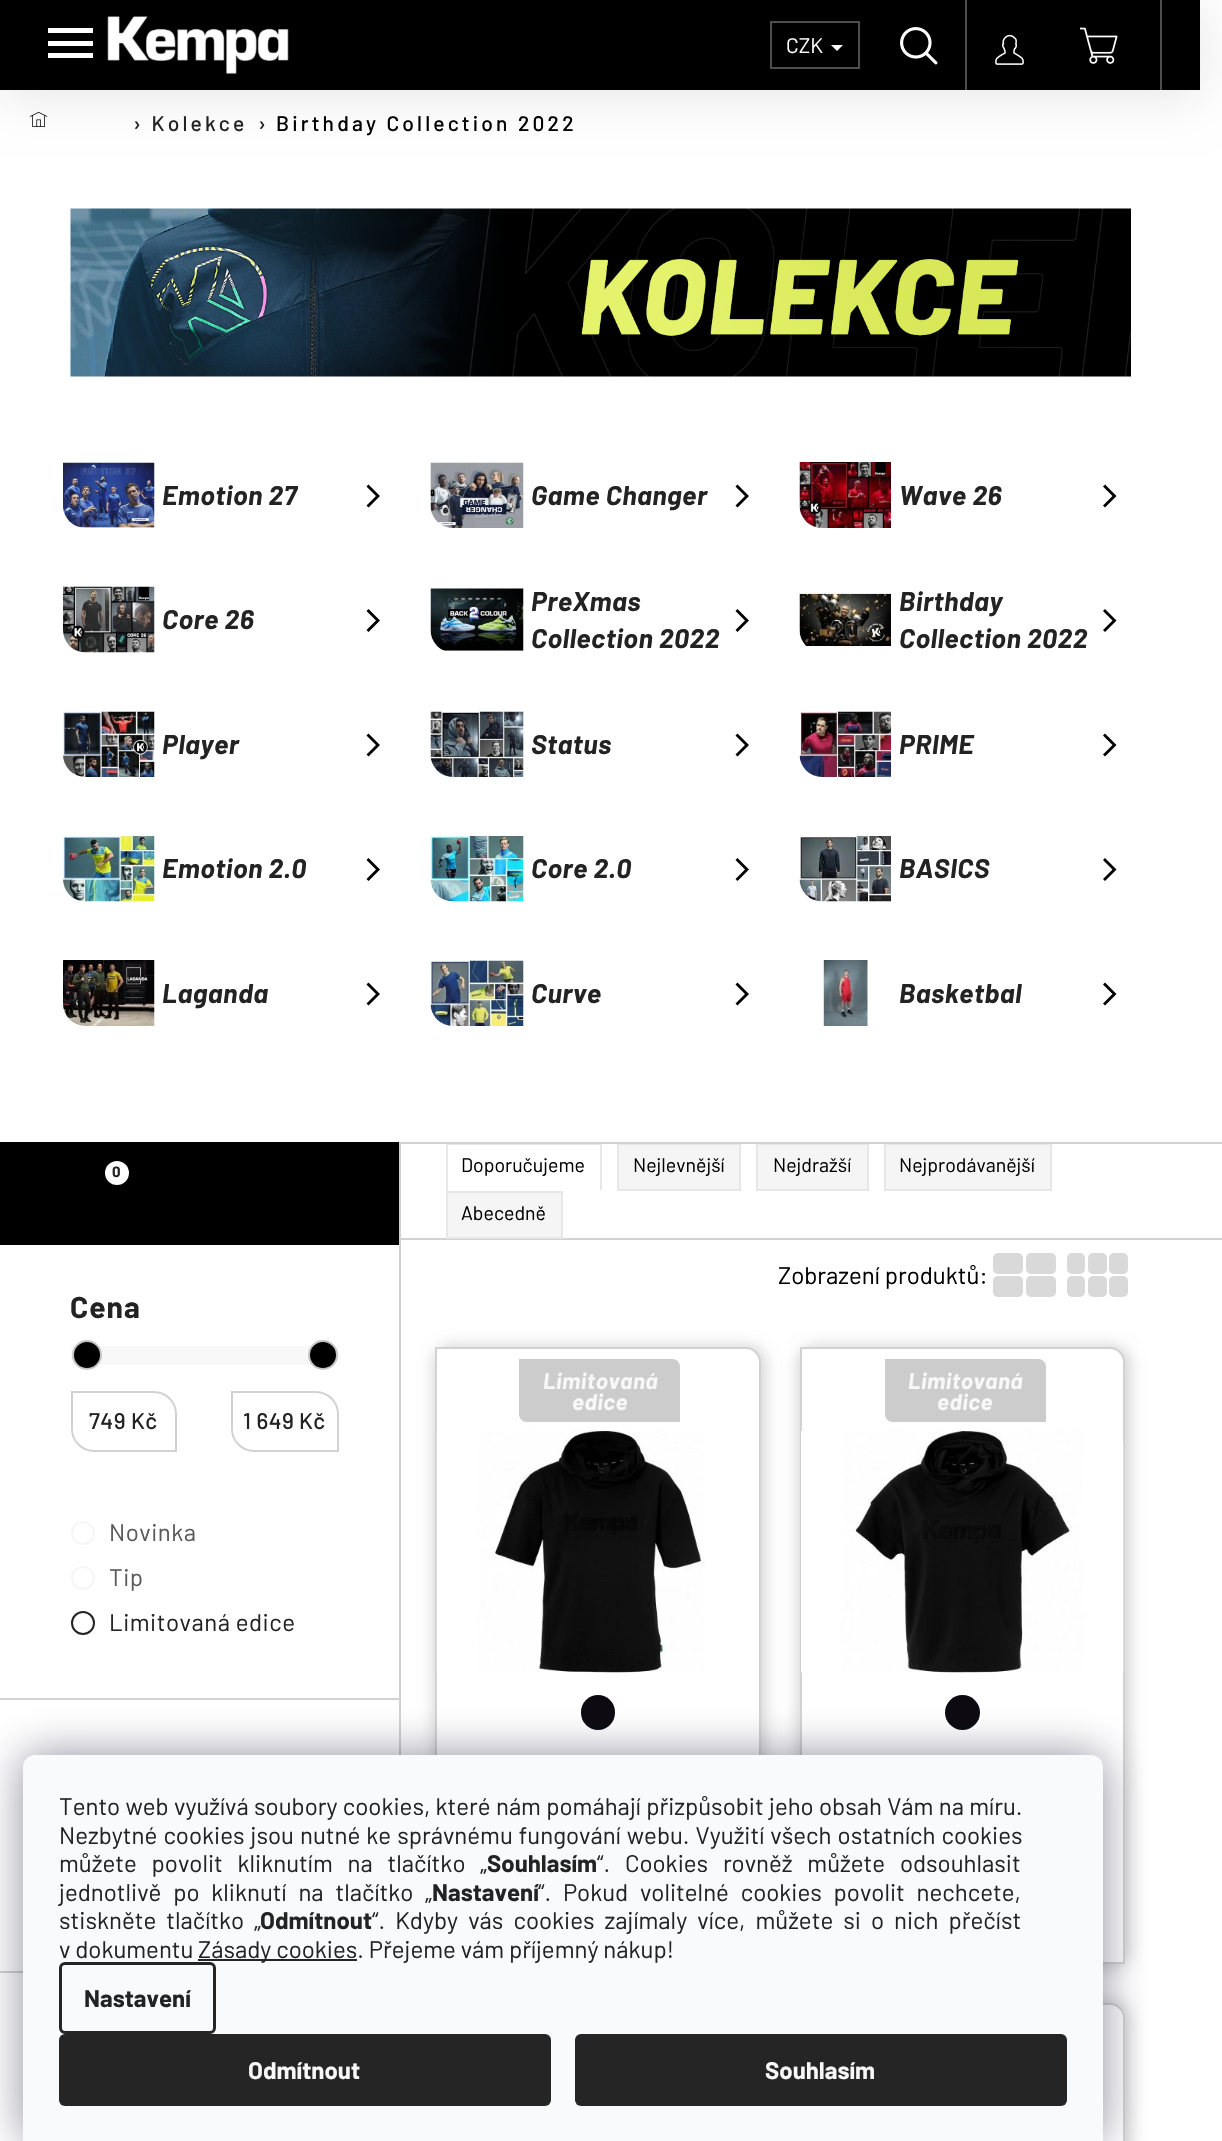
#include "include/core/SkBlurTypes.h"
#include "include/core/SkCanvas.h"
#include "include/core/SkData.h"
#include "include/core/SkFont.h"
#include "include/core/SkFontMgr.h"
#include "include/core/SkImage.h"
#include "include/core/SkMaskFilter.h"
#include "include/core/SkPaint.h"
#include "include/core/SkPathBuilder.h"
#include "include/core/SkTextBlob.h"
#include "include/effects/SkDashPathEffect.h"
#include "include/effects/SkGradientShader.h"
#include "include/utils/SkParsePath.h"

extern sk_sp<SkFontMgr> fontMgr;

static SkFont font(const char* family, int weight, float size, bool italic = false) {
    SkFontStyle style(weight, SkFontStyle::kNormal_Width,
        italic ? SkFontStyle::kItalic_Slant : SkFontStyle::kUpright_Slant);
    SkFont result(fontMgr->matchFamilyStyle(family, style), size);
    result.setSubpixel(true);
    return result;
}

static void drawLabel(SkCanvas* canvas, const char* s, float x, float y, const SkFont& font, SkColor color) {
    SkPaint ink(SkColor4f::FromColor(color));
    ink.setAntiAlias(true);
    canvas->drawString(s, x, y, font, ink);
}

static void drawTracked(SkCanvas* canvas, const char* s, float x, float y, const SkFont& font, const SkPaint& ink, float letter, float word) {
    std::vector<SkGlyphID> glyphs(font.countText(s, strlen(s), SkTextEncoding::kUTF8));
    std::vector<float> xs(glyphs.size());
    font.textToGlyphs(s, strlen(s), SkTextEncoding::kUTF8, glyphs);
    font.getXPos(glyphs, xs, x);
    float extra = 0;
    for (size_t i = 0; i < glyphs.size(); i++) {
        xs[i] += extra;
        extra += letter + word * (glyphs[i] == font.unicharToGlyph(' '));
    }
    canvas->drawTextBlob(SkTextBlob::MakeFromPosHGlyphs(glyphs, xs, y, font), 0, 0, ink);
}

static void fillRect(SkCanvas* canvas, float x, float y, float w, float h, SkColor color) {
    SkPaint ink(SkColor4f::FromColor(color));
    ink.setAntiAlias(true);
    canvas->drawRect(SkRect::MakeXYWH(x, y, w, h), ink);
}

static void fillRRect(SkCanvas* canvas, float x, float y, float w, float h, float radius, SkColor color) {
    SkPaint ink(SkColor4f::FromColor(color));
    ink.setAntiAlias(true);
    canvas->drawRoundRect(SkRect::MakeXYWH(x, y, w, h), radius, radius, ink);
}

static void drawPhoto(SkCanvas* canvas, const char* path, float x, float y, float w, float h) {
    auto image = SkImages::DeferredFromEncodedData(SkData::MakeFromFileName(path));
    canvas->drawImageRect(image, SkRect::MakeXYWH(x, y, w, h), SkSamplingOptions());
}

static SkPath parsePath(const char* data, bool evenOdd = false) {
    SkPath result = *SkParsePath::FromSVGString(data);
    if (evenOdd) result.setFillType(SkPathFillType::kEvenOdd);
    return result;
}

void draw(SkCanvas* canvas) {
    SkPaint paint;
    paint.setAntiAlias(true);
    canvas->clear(0xFFFFFFFF);
    drawPhoto(canvas, "assets/img5.png", 30, 112, 18, 15);
    paint.setColor(0x1A000000);
    paint.setMaskFilter(SkMaskFilter::MakeBlur(kNormal_SkBlurStyle, 26));
    canvas->drawRect(SkRect::MakeXYWH(0, 5, 1200, 90), paint);
    paint.setMaskFilter(nullptr);
    fillRect(canvas, 0, 0, 1200, 90, 0xFF000000);
    paint.setColor(0xFFFFFFFF);
    canvas->drawPath(parsePath("M48 58H93V53H48ZM48 46H93V41H48ZM48 28V33H93V28Z"), paint);
    drawPhoto(canvas, "assets/img1.png", 107, 16, 182, 58);
    fillRect(canvas, 1160, 0, 2, 90, 0xFF4D4D4D);
    paint.setStroke(true);
    paint.setStrokeWidth(2);
    paint.setColor(0xFF4D4D4D);
    canvas->drawRect(SkRect::MakeXYWH(771, 22, 88, 46), paint);
    SkFont font1 = font("Barlow", 400, 21);
    drawLabel(canvas, "CZK", 786, 53, font1, 0xFFFFFFFF);
    paint.setStroke(false);
    paint.setColor(0xFFFFFFFF);
    canvas->drawPath(parsePath("M831 45H843L837 51Z"), paint);
    drawPhoto(canvas, "assets/img2.png", 900, 27, 38, 38);
    fillRect(canvas, 965, 0, 2, 90, 0xFF4D4D4D);
    drawPhoto(canvas, "assets/img3.png", 995, 34, 29, 31);
    drawPhoto(canvas, "assets/img4.png", 1080, 27, 38, 37);
    SkFont font2 = font("Barlow", 500, 21);
    paint.setColor(0xFF232323);
    drawTracked(canvas, "› Kolekce", 133, 131, font2, paint, 3.15f, 0);
    drawTracked(canvas, "›", 258, 131, font2, paint, 3.15f, 0);
    paint.setColor(0xFF000000);
    drawTracked(canvas, "Birthday Collection 2022", 276, 131, font2, paint, 3.15f, 0);
    drawPhoto(canvas, "assets/img6.png", 70, 208, 1061, 169);
    drawPhoto(canvas, "assets/img7.png", 63, 462, 92, 66);
    SkFont font3 = font("Barlow", 700, 27, true);
    paint.setColor(0xFF232323);
    drawTracked(canvas, "Emotion 27", 162, 505, font3, paint, 0.5f, 0);
    paint.setColor(0xFF000000);
    canvas->drawPath(parsePath("M368.5 507.5L366.5 505.5L376 496L366.5 486.5L368.5 484.5L380 496Z"), paint);
    drawPhoto(canvas, "assets/img8.png", 430, 462, 94, 66);
    paint.setColor(0xFF232323);
    drawTracked(canvas, "Game Changer", 531, 505, font3, paint, 0.5f, 0);
    paint.setColor(0xFF000000);
    canvas->drawPath(parsePath("M737.5 507.5L735.5 505.5L745 496L735.5 486.5L737.5 484.5L749 496Z"), paint);
    drawPhoto(canvas, "assets/img9.png", 799, 462, 92, 66);
    paint.setColor(0xFF232323);
    drawTracked(canvas, "Wave 26", 899, 505, font3, paint, 0.5f, 0);
    paint.setColor(0xFF000000);
    canvas->drawPath(parsePath("M1105 507.5L1103 505.5L1112.5 496L1103 486.5L1105 484.5L1116.5 496Z"), paint);
    drawPhoto(canvas, "assets/img10.png", 63, 586, 92, 67);
    paint.setColor(0xFF232323);
    drawTracked(canvas, "Core 26", 162, 629, font3, paint, 0.5f, 0);
    paint.setColor(0xFF000000);
    canvas->drawPath(parsePath("M368.5 632L366.5 630L376 620.5L366.5 611L368.5 609L380 620.5Z"), paint);
    drawPhoto(canvas, "assets/img11.png", 430, 588, 94, 63);
    paint.setColor(0xFF232323);
    drawTracked(canvas, "PreXmas", 531, 611, font3, paint, 0.5f, 0);
    drawTracked(canvas, "Collection 2022", 531, 648, font3, paint, 0.5f, 0);
    paint.setColor(0xFF000000);
    canvas->drawPath(parsePath("M737.5 632L735.5 630L745 620.5L735.5 611L737.5 609L749 620.5Z"), paint);
    drawPhoto(canvas, "assets/img12.png", 799, 591, 92, 59);
    paint.setColor(0xFF232323);
    drawTracked(canvas, "Birthday", 899, 611, font3, paint, 0.5f, 0);
    drawTracked(canvas, "Collection 2022", 899, 648, font3, paint, 0.5f, 0);
    paint.setColor(0xFF000000);
    canvas->drawPath(parsePath("M1105 632L1103 630L1112.5 620.5L1103 611L1105 609L1116.5 620.5Z"), paint);
    drawPhoto(canvas, "assets/img13.png", 63, 711, 92, 66);
    paint.setColor(0xFF232323);
    drawTracked(canvas, "Player", 162, 754, font3, paint, 0.5f, 0);
    paint.setColor(0xFF000000);
    canvas->drawPath(parsePath("M368.5 756.5L366.5 754.5L376 745L366.5 735.5L368.5 733.5L380 745Z"), paint);
    drawPhoto(canvas, "assets/img14.png", 430, 711, 94, 66);
    paint.setColor(0xFF232323);
    drawTracked(canvas, "Status", 531, 754, font3, paint, 0.5f, 0);
    paint.setColor(0xFF000000);
    canvas->drawPath(parsePath("M737.5 756.5L735.5 754.5L745 745L735.5 735.5L737.5 733.5L749 745Z"), paint);
    drawPhoto(canvas, "assets/img15.png", 799, 711, 92, 66);
    paint.setColor(0xFF232323);
    drawTracked(canvas, "PRIME", 899, 754, font3, paint, 0.5f, 0);
    paint.setColor(0xFF000000);
    canvas->drawPath(parsePath("M1105 756.5L1103 754.5L1112.5 745L1103 735.5L1105 733.5L1116.5 745Z"), paint);
    drawPhoto(canvas, "assets/img16.png", 63, 835, 92, 67);
    paint.setColor(0xFF232323);
    drawTracked(canvas, "Emotion 2.0", 162, 878, font3, paint, 0.5f, 0);
    paint.setColor(0xFF000000);
    canvas->drawPath(parsePath("M368.5 881L366.5 879L376 869.5L366.5 860L368.5 858L380 869.5Z"), paint);
    drawPhoto(canvas, "assets/img17.png", 430, 835, 94, 67);
    paint.setColor(0xFF232323);
    drawTracked(canvas, "Core 2.0", 531, 878, font3, paint, 0.5f, 0);
    paint.setColor(0xFF000000);
    canvas->drawPath(parsePath("M737.5 881L735.5 879L745 869.5L735.5 860L737.5 858L749 869.5Z"), paint);
    drawPhoto(canvas, "assets/img18.png", 799, 835, 92, 67);
    paint.setColor(0xFF232323);
    drawTracked(canvas, "BASICS", 899, 878, font3, paint, 0.5f, 0);
    paint.setColor(0xFF000000);
    canvas->drawPath(parsePath("M1105 881L1103 879L1112.5 869.5L1103 860L1105 858L1116.5 869.5Z"), paint);
    drawPhoto(canvas, "assets/img19.png", 63, 960, 92, 66);
    paint.setColor(0xFF232323);
    drawTracked(canvas, "Laganda", 162, 1003, font3, paint, 0.5f, 0);
    paint.setColor(0xFF000000);
    canvas->drawPath(parsePath("M368.5 1005.5L366.5 1003.5L376 994L366.5 984.5L368.5 982.5L380 994Z"), paint);
    drawPhoto(canvas, "assets/img20.png", 430, 960, 94, 66);
    paint.setColor(0xFF232323);
    drawTracked(canvas, "Curve", 531, 1003, font3, paint, 0.5f, 0);
    paint.setColor(0xFF000000);
    canvas->drawPath(parsePath("M737.5 1005.5L735.5 1003.5L745 994L735.5 984.5L737.5 982.5L749 994Z"), paint);
    drawPhoto(canvas, "assets/img21.png", 822, 960, 47, 66);
    paint.setColor(0xFF232323);
    drawTracked(canvas, "Basketbal", 899, 1003, font3, paint, 0.5f, 0);
    paint.setColor(0xFF000000);
    canvas->drawPath(parsePath("M1105 1005.5L1103 1003.5L1112.5 994L1103 984.5L1105 982.5L1116.5 994Z"), paint);
    fillRect(canvas, 399, 1142, 2, 613, 0xFFD2D2D2);
    fillRect(canvas, 0, 1142, 399, 103, 0xFF000000);
    paint.setColor(0xFFFFFFFF);
    canvas->drawCircle(117, 1173, 12, paint);
    SkFont font4 = font("Barlow", 700, 15);
    drawLabel(canvas, "0", 112, 1177, font4, 0xFF232323);
    SkFont font5 = font("Barlow", 700, 30);
    paint.setColor(0xFF232323);
    drawTracked(canvas, "Cena", 70, 1318, font5, paint, 1, 0);
    fillRect(canvas, 71, 1346, 268, 15, 0xFFF8F8F8);
    fillRect(canvas, 98, 1361, 214, 4, 0xFFF8F8F8);
    paint.setColor(0xFF000000);
    canvas->drawCircle(87, 1355, 14, paint);
    paint.setStroke(true);
    paint.setColor(0xFFC5C5C5);
    canvas->drawCircle(87, 1355, 14, paint);
    paint.setStroke(false);
    paint.setColor(0xFF000000);
    canvas->drawCircle(323, 1355, 14, paint);
    paint.setStroke(true);
    paint.setColor(0xFFC5C5C5);
    canvas->drawCircle(323, 1355, 14, paint);
    paint.setColor(0xFFD2D2D2);
    canvas->drawPath(parsePath("M72 1392H154C166 1392 176 1402 176 1414V1451H94C82 1451 72 1441 72 1429Z"), paint);
    SkFont font6 = font("Barlow", 500, 22.5f);
    paint.setStroke(false);
    paint.setColor(0xFF232323);
    drawTracked(canvas, "749", 89, 1429, font6, paint, 0.5f, 0);
    drawTracked(canvas, "Kč", 131, 1429, font6, paint, 0.5f, 0);
    paint.setStroke(true);
    paint.setColor(0xFFD2D2D2);
    canvas->drawPath(parsePath("M232 1392H316C328 1392 338 1402 338 1414V1451H254C242 1451 232 1441 232 1429Z"), paint);
    paint.setStroke(false);
    paint.setColor(0xFF232323);
    drawTracked(canvas, "1 649", 243, 1429, font6, paint, 0.5f, 0);
    drawTracked(canvas, "Kč", 299, 1429, font6, paint, 0.5f, 0);
    paint.setStroke(true);
    paint.setColor(0xFFF6F6F6);
    canvas->drawCircle(83, 1533, 11, paint);
    SkFont font7 = font("Barlow", 400, 24);
    paint.setStroke(false);
    paint.setColor(0xFF5A5A5A);
    drawTracked(canvas, "Novinka", 109, 1541, font7, paint, 0.5f, 0);
    paint.setStroke(true);
    paint.setColor(0xFFF6F6F6);
    canvas->drawCircle(83, 1578, 11, paint);
    paint.setStroke(false);
    paint.setColor(0xFF5A5A5A);
    drawTracked(canvas, "Tip", 109, 1586, font7, paint, 0.5f, 0);
    paint.setStroke(true);
    paint.setColor(0xFF232323);
    canvas->drawCircle(83, 1623, 11, paint);
    paint.setStroke(false);
    drawTracked(canvas, "Limitovaná edice", 109, 1631, font7, paint, 0.5f, 0);
    fillRect(canvas, 0, 1698, 399, 2, 0xFFD2D2D2);
    fillRect(canvas, 0, 1971, 23, 2, 0xFFD2D2D2);
    fillRect(canvas, 431, 1142, 700, 1, 0xFFD2D2D2);
    fillRect(canvas, 431, 1238, 700, 1, 0xFFD2D2D2);
    fillRect(canvas, 446, 1144, 156, 1, 0xFFE7E7E7);
    fillRect(canvas, 600, 1143, 2, 48, 0xFFE7E7E7);
    fillRect(canvas, 446, 1143, 2, 48, 0xFFE7E7E7);
    paint.setColor(0xFFF5F5F5);
    canvas->drawRect(SkRect::MakeXYWH(618, 1144, 122, 46), paint);
    paint.setStroke(true);
    paint.setColor(0xFFE7E7E7);
    canvas->drawRect(SkRect::MakeXYWH(618, 1144, 122, 46), paint);
    paint.setStroke(false);
    paint.setColor(0xFFF5F5F5);
    canvas->drawRect(SkRect::MakeXYWH(757, 1144, 111, 46), paint);
    paint.setStroke(true);
    paint.setColor(0xFFE7E7E7);
    canvas->drawRect(SkRect::MakeXYWH(757, 1144, 111, 46), paint);
    paint.setStroke(false);
    paint.setColor(0xFFF5F5F5);
    canvas->drawRect(SkRect::MakeXYWH(885, 1144, 166, 46), paint);
    paint.setStroke(true);
    paint.setColor(0xFFE7E7E7);
    canvas->drawRect(SkRect::MakeXYWH(885, 1144, 166, 46), paint);
    paint.setStroke(false);
    paint.setColor(0xFFD2D2D2);
    canvas->drawPath(parsePath("M431 1143V1144H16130V1142H1131V1143Z"), paint);
    fillRect(canvas, 399, 1142, 32, 2, 0xFFD2D2D2);
    fillRect(canvas, 600, 1190, 2, 1, 0xFFFFFFFF);
    SkFont font8 = font("Barlow", 400, 19.5f);
    drawLabel(canvas, "Doporučujeme", 461, 1172, font8, 0xFF000000);
    drawLabel(canvas, "Nejlevnější", 633, 1172, font8, 0xFF000000);
    drawLabel(canvas, "Nejdražší", 773, 1172, font8, 0xFF000000);
    drawLabel(canvas, "Nejprodávanější", 899, 1172, font8, 0xFF000000);
    paint.setColor(0xFFF5F5F5);
    canvas->drawRect(SkRect::MakeXYWH(447, 1192, 115, 46), paint);
    paint.setStroke(true);
    paint.setColor(0xFFE7E7E7);
    canvas->drawRect(SkRect::MakeXYWH(447, 1192, 115, 46), paint);
    drawLabel(canvas, "Abecedně", 461, 1220, font8, 0xFF000000);
    paint.setStroke(false);
    paint.setColor(0xFFD2D2D2);
    canvas->drawPath(parsePath("M431 1239V1240H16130V1238H1131V1239Z"), paint);
    fillRect(canvas, 399, 1238, 32, 2, 0xFFD2D2D2);
    drawLabel(canvas, "Zobrazení produktů:", 778, 1284, font7, 0xFF000000);
    fillRRect(canvas, 993, 1253, 30, 21, 5, 0xFFD9D9D9);
    fillRRect(canvas, 1026, 1253, 30, 21, 5, 0xFFD9D9D9);
    fillRRect(canvas, 993, 1276, 30, 21, 5, 0xFFD9D9D9);
    fillRRect(canvas, 1026, 1276, 30, 21, 5, 0xFFD9D9D9);
    fillRRect(canvas, 1067, 1253, 18, 21, 5, 0xFFD9D9D9);
    fillRRect(canvas, 1088, 1253, 19, 21, 5, 0xFFD9D9D9);
    fillRRect(canvas, 1109, 1253, 19, 21, 5, 0xFFD9D9D9);
    fillRRect(canvas, 1067, 1276, 18, 21, 5, 0xFFD9D9D9);
    fillRRect(canvas, 1088, 1276, 19, 21, 5, 0xFFD9D9D9);
    fillRRect(canvas, 1109, 1276, 19, 21, 5, 0xFFD9D9D9);
    paint.setMaskFilter(SkMaskFilter::MakeBlur(kNormal_SkBlurStyle, 7.5f));
    canvas->drawRoundRect(SkRect::MakeXYWH(434, 1346, 331, 622), 18, 18, paint);
    paint.setMaskFilter(nullptr);
    paint.setColor(0xFFFFFFFF);
    canvas->drawPath(parsePath("M436 1348H746C753.5 1348 760 1354.5 760 1362V1963H450C442.5 1963 436 1956.5 436 1949Z"), paint);
    paint.setStroke(true);
    paint.setColor(0xFFD2D2D2);
    canvas->drawPath(parsePath("M436 1348H746C753.5 1348 760 1354.5 760 1362V1963H450C442.5 1963 436 1956.5 436 1949Z"), paint);
    paint.setStroke(false);
    paint.setColor(0xFFCCCCCC);
    canvas->drawPath(parsePath("M519 1359H672C676.5 1359 680 1362.5 680 1367V1422H527C522.5 1422 519 1418.5 519 1414Z"), paint);
    SkFont font9 = font("Barlow", 700, 22.5f, true);
    paint.setColor(0xFFF8F8F8);
    drawTracked(canvas, "Limitovaná", 543, 1389, font9, paint, 0.5f, 0);
    drawTracked(canvas, "edice", 572, 1410, font9, paint, 0.5f, 0);
    drawPhoto(canvas, "assets/img22.png", 436, 1431, 269, 242);
    fillRRect(canvas, 581, 1695, 34, 35, 17, 0xFF0C0910);
    paint.setColor(0xFFD2D2D2);
    paint.setMaskFilter(SkMaskFilter::MakeBlur(kNormal_SkBlurStyle, 7.5f));
    canvas->drawRoundRect(SkRect::MakeXYWH(798, 1346, 332, 622), 18, 18, paint);
    paint.setMaskFilter(nullptr);
    paint.setColor(0xFFFFFFFF);
    canvas->drawPath(parsePath("M801 1348H1110C1117.5 1348 1124 1354.5 1124 1362V1963H815C807.5 1963 801 1956.5 801 1949Z"), paint);
    paint.setStroke(true);
    paint.setColor(0xFFD2D2D2);
    canvas->drawPath(parsePath("M801 1348H1110C1117.5 1348 1124 1354.5 1124 1362V1963H815C807.5 1963 801 1956.5 801 1949Z"), paint);
    paint.setStroke(false);
    paint.setColor(0xFFCCCCCC);
    canvas->drawPath(parsePath("M885 1359H1038C1042.5 1359 1046 1362.5 1046 1367V1422H893C888.5 1422 885 1418.5 885 1414Z"), paint);
    paint.setColor(0xFFF8F8F8);
    drawTracked(canvas, "Limitovaná", 908, 1389, font9, paint, 0.5f, 0);
    drawTracked(canvas, "edice", 937, 1410, font9, paint, 0.5f, 0);
    drawPhoto(canvas, "assets/img23.png", 801, 1431, 323, 242);
    paint.setColor(0xFF0C0910);
    canvas->drawCircle(962.5f, 1712.5f, 17.5f, paint);
    paint.setColor(0xFFD2D2D2);
    paint.setMaskFilter(SkMaskFilter::MakeBlur(kNormal_SkBlurStyle, 7.5f));
    canvas->drawRoundRect(SkRect::MakeXYWH(798, 2001, 332, 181), 18, 18, paint);
    paint.setMaskFilter(nullptr);
    paint.setColor(0xFFFFFFFF);
    canvas->drawPath(parsePath("M801 2004H1110C1117.5 2004 1124 2010.5 1124 2018V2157H815C807.5 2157 801 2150.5 801 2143Z"), paint);
    paint.setStroke(true);
    paint.setColor(0xFFD2D2D2);
    canvas->drawPath(parsePath("M801 2004H1110C1117.5 2004 1124 2010.5 1124 2018V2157H815C807.5 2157 801 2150.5 801 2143Z"), paint);
    paint.setStroke(false);
    paint.setColor(0x801B1939);
    paint.setMaskFilter(SkMaskFilter::MakeBlur(kNormal_SkBlurStyle, 22.5f));
    canvas->drawRoundRect(SkRect::MakeXYWH(23, 1755, 1080, 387), 12, 12, paint);
    paint.setMaskFilter(nullptr);
    paint.setColor(0xFFF8FAFB);
    canvas->drawPath(parsePath("M35 1755H1091C1097.5 1755 1103 1760.5 1103 1767V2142H23V1767C23 1760.5 28.5 1755 35 1755Z"), paint);
    paint.setColor(0xFF232323);
    drawTracked(canvas, "Tento web využívá soubory cookies, které nám pomáhají přizpůsobit jeho obsah Vám na míru.", 59, 1815, font7, paint, 0, 0.5f);
    drawTracked(canvas, "Nezbytné cookies jsou nutné ke správnému fungování webu. Využití všech ostatních cookies", 59, 1844, font7, paint, 0, 1.25f);
    drawTracked(canvas, "můžete povolit kliknutím na tlačítko „", 59, 1872, font7, paint, 0, 10);
    SkFont font10 = font("Barlow", 700, 24);
    drawLabel(canvas, "Souhlasím", 487, 1872, font10, 0xFF232323);
    drawTracked(canvas, "“. Cookies rovněž můžete odsouhlasit", 597, 1872, font7, paint, 0, 10);
    drawTracked(canvas, "jednotlivě po kliknutí na tlačítko „", 59, 1901, font7, paint, 0, 7);
    drawLabel(canvas, "Nastavení", 432, 1901, font10, 0xFF232323);
    drawTracked(canvas, "“. Pokud volitelné cookies povolit nechcete,", 538, 1901, font7, paint, 0, 7);
    drawTracked(canvas, "stiskněte tlačítko „", 59, 1929, font7, paint, 0, 5.25f);
    drawLabel(canvas, "Odmítnout", 260, 1929, font10, 0xFF232323);
    drawTracked(canvas, "“. Kdyby vás cookies zajímaly více, můžete si o nich přečíst", 372, 1929, font7, paint, 0, 5.25f);
    drawLabel(canvas, "v dokumentu", 59, 1958, font7, 0xFF232323);
    fillRect(canvas, 198, 1959, 159, 2, 0xFF252525);
    drawLabel(canvas, "Zásady cookies. Přejeme vám příjemný nákup!", 198, 1958, font7, 0xFF232323);
    paint.setStroke(true);
    paint.setStrokeWidth(3);
    paint.setColor(0xFF252525);
    canvas->drawRoundRect(SkRect::MakeXYWH(60.5f, 1963.5f, 154, 69), 4.5f, 4.5f, paint);
    drawLabel(canvas, "Nastavení", 84, 2007, font10, 0xFF232323);
    fillRRect(canvas, 59, 2034, 492, 72, 6, 0xFF252525);
    drawLabel(canvas, "Odmítnout", 248, 2079, font10, 0xFFF8F8F8);
    fillRRect(canvas, 575, 2034, 492, 72, 6, 0xFF252525);
    drawLabel(canvas, "Souhlasím", 765, 2079, font10, 0xFFF8F8F8);
}
